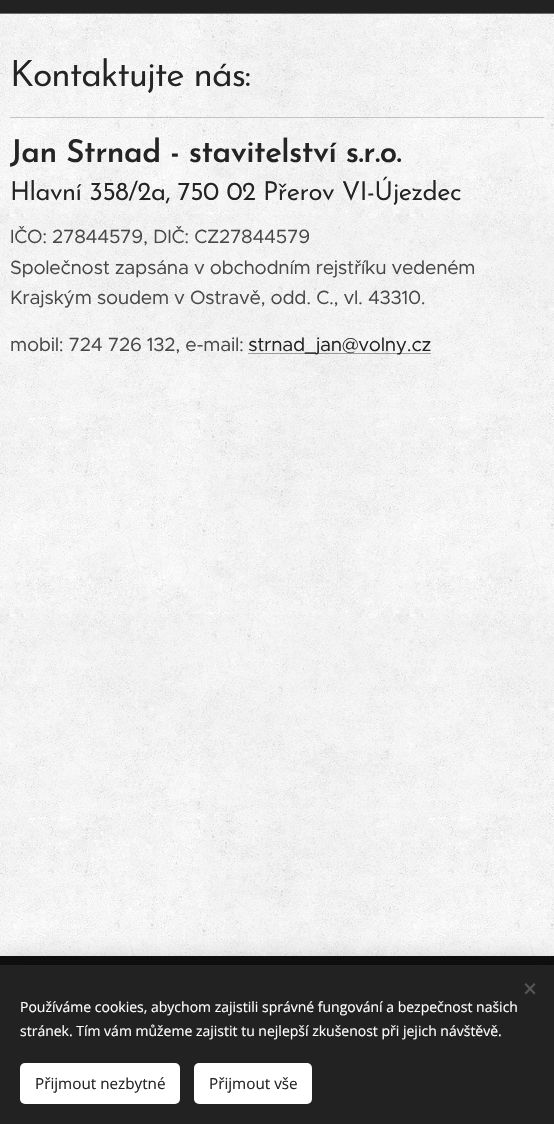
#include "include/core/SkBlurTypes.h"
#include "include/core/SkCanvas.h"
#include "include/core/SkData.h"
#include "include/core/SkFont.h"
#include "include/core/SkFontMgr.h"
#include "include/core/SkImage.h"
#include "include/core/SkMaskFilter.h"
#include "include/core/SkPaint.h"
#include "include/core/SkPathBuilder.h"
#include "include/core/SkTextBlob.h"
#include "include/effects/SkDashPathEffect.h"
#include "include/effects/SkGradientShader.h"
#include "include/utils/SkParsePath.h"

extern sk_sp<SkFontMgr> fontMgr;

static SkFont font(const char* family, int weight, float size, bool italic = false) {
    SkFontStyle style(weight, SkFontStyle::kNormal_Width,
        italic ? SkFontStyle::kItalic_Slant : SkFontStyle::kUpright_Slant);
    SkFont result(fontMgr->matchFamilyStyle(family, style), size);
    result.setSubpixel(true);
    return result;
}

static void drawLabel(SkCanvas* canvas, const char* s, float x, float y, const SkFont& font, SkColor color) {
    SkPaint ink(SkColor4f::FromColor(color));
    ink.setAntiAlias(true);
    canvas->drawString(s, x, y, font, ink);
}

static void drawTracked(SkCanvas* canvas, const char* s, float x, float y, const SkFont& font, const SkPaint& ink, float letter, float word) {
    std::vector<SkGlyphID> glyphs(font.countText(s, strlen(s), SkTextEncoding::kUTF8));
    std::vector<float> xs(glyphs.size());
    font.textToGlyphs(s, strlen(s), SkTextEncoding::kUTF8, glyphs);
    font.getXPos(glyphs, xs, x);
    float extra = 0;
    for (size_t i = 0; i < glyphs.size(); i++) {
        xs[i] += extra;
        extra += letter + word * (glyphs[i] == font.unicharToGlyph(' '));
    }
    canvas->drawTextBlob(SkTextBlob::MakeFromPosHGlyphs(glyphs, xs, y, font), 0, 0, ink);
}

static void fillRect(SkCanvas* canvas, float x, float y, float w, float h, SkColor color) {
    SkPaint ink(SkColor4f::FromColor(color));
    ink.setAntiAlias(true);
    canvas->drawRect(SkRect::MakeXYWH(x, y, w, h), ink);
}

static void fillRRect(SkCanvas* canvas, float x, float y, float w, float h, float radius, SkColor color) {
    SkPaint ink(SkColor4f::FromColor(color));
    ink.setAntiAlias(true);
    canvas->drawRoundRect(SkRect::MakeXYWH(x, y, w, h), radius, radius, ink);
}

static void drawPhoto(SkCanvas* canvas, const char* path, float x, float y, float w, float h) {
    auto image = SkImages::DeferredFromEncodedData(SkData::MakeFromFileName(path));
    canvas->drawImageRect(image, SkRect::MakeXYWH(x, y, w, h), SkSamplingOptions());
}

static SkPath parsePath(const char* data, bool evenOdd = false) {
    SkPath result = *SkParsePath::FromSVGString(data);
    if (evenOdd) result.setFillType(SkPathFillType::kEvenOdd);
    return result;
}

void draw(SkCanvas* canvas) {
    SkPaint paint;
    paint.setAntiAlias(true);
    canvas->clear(0xFF101010);
    fillRect(canvas, 0, 0, 554, 13, 0xFF222222);
    fillRect(canvas, 0, 13, 554, 1, 0xFF6E6E6E);
    drawPhoto(canvas, "assets/img1.png", 0, 14, 554, 942);
    SkFont font1 = font("Josefin Sans", 400, 36);
    paint.setColor(0xFF242424);
    drawTracked(canvas, "Kontaktujte nás:", 10, 86, font1, paint, -1.1f, 0);
    fillRect(canvas, 10, 117, 534, 1, 0x33000000);
    SkFont font2 = font("Josefin Sans", 600, 31.25f);
    drawTracked(canvas, "Jan Strnad - stavitelství s.r.o.", 10, 162, font2, paint, -0.5f, 0);
    SkFont font3 = font("Josefin Sans", 400, 26);
    drawTracked(canvas, "Hlavní 358/2a, 750 02 Přerov VI-Újezdec", 10, 200, font3, paint, -0.5f, 0);
    SkFont font4 = font("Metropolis", 400, 19.2f);
    paint.setColor(0xFF484848);
    drawTracked(canvas, "IČO: 27844579, DIČ: CZ27844579", 10, 243, font4, paint, -0.3f, 0);
    drawTracked(canvas, "Společnost zapsána v obchodním rejstříku vedeném", 10, 274, font4, paint, -0.3f, 0);
    drawTracked(canvas, "Krajským soudem v Ostravě, odd. C., vl. 43310.", 10, 304, font4, paint, -0.3f, 0);
    drawTracked(canvas, "mobil: 724 726 132, e-mail:", 10, 351, font4, paint, -0.3f, 0);
    fillRect(canvas, 248, 353, 183, 1, 0x59000000);
    paint.setColor(0xFF242424);
    drawTracked(canvas, "strnad_jan@volny.cz", 248, 351, font4, paint, -0.3f, 0);
    paint.setColor(0x54000000);
    paint.setMaskFilter(SkMaskFilter::MakeBlur(kNormal_SkBlurStyle, 12.5f));
    canvas->drawRect(SkRect::MakeXYWH(0, 965, 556, 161), paint);
    paint.setMaskFilter(nullptr);
    fillRect(canvas, 0, 965, 554, 159, 0xFF222222);
    paint.setColor(0xFF555555);
    canvas->drawPath(parsePath("M524.5 993L534 983L535.5 984.5L526 994.5Z"), paint);
    canvas->drawPath(parsePath("M526 983L535.5 993L534 994.5L524.5 984.5Z"), paint);
    SkFont font5 = font("Open Sans", 400, 14);
    drawLabel(canvas, "Používáme cookies, abychom zajistili správné fungování a bezpečnost našich", 20, 1012, font5, 0xFFFFFFFF);
    drawLabel(canvas, "stránek. Tím vám můžeme zajistit tu nejlepší zkušenost při jejich návštěvě.", 20, 1036, font5, 0xFFFFFFFF);
    fillRRect(canvas, 20, 1063, 160, 41, 5, 0xFFFFFFFF);
    SkFont font6 = font("Open Sans", 400, 15.25f);
    drawLabel(canvas, "Přijmout nezbytné", 35, 1089, font6, 0xFF242424);
    fillRRect(canvas, 194, 1063, 118, 41, 5, 0xFFFFFFFF);
    drawLabel(canvas, "Přijmout vše", 209, 1089, font6, 0xFF242424);
}
